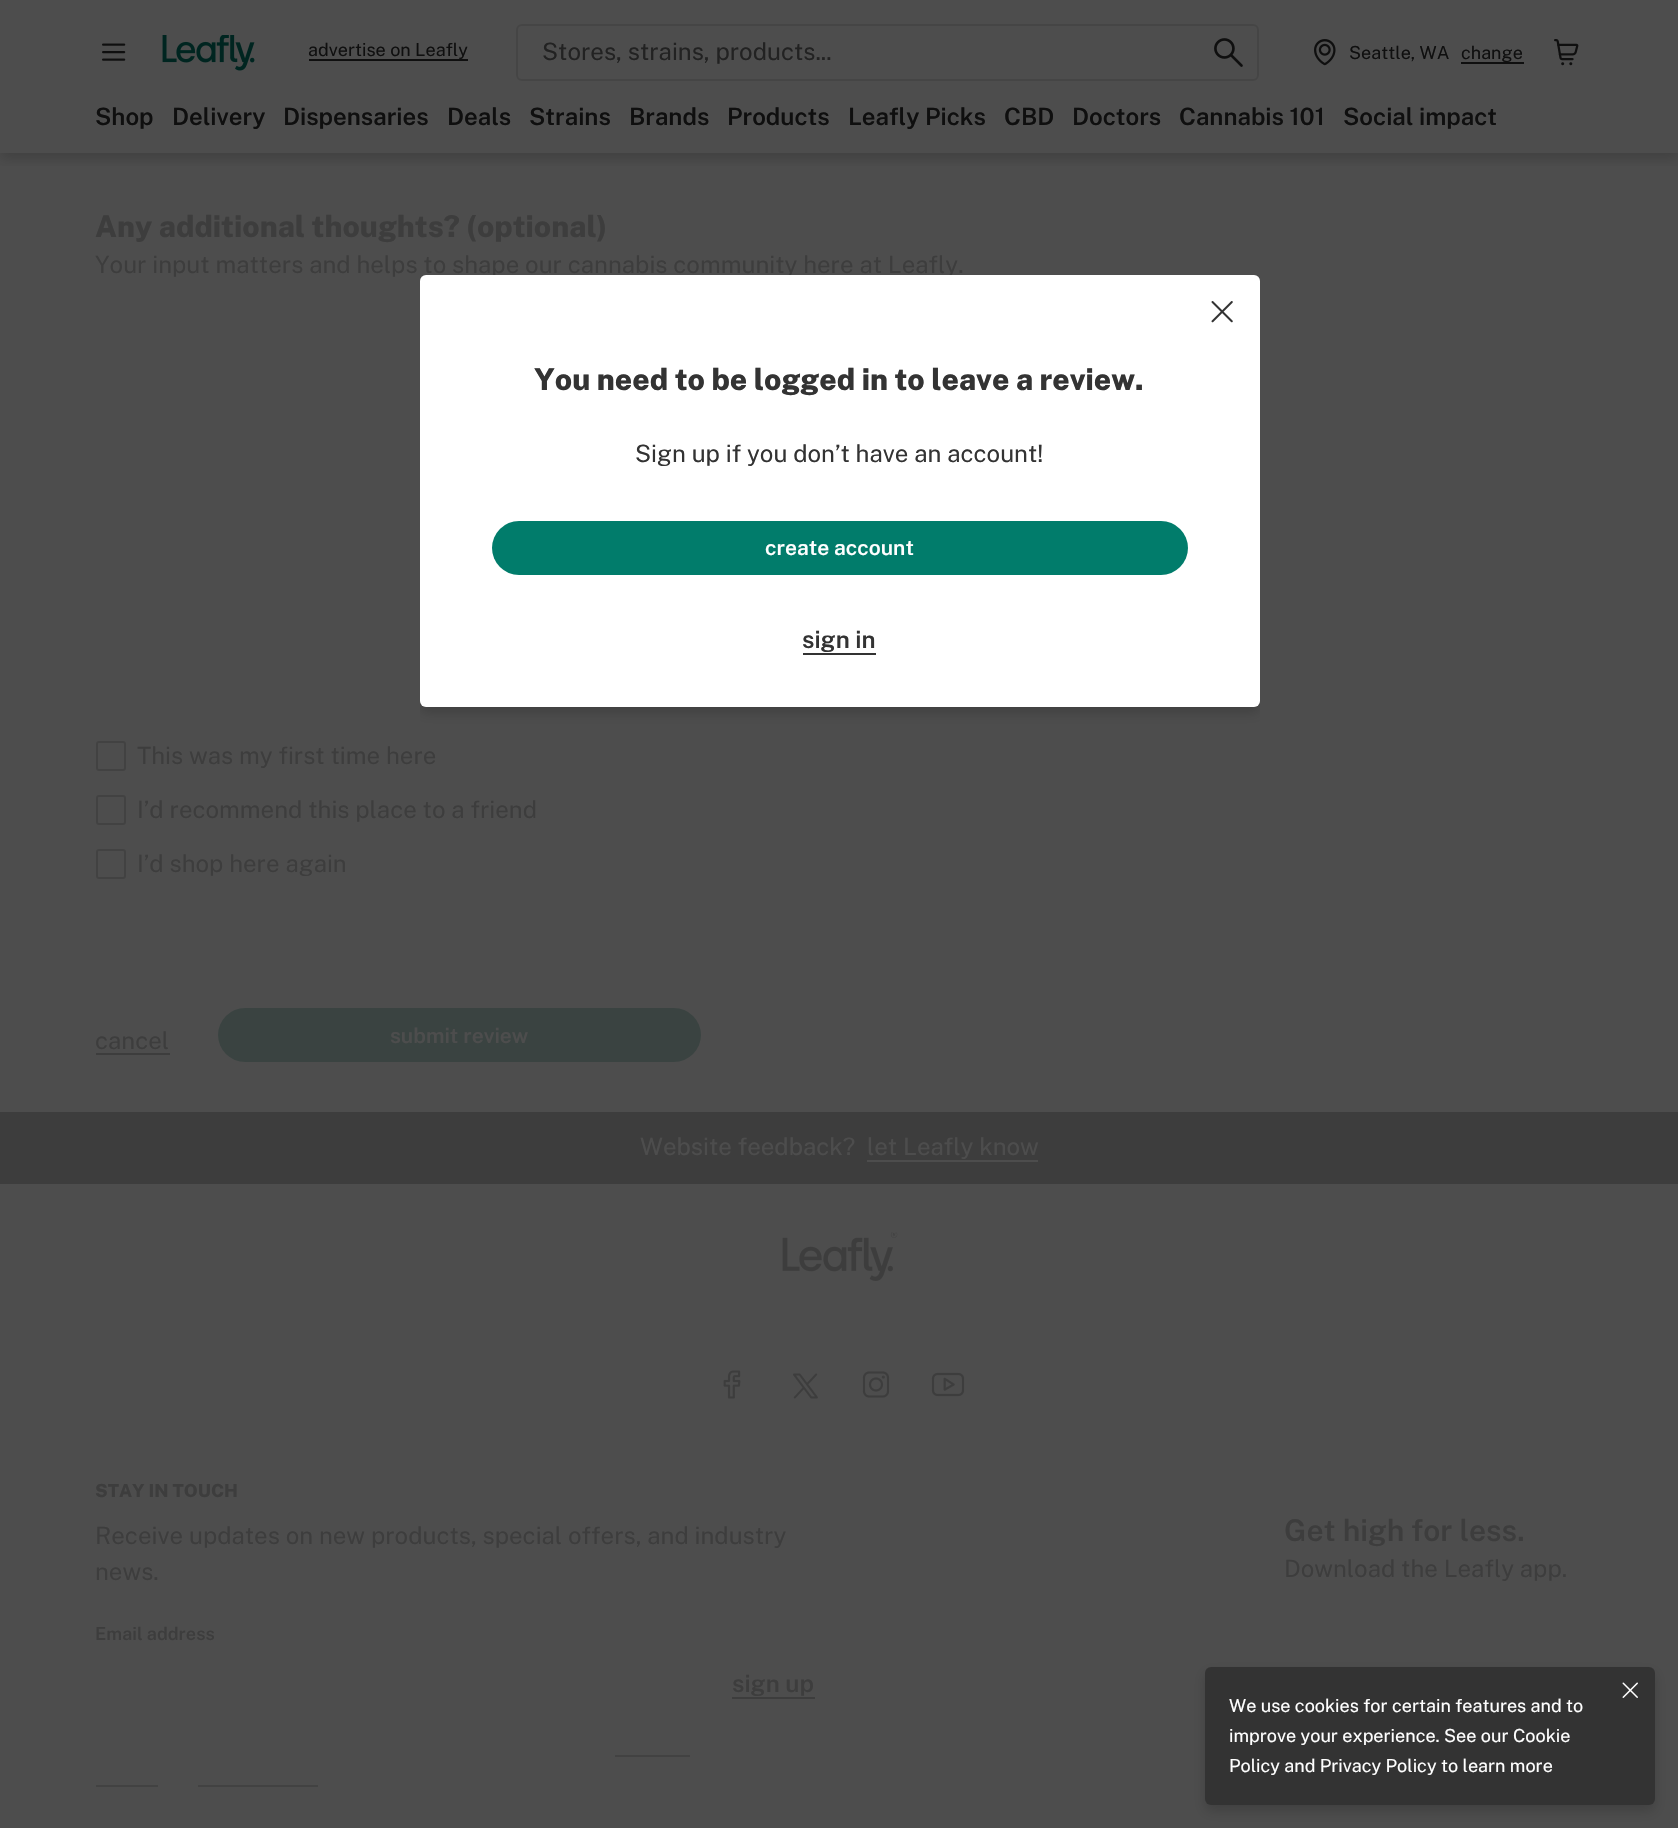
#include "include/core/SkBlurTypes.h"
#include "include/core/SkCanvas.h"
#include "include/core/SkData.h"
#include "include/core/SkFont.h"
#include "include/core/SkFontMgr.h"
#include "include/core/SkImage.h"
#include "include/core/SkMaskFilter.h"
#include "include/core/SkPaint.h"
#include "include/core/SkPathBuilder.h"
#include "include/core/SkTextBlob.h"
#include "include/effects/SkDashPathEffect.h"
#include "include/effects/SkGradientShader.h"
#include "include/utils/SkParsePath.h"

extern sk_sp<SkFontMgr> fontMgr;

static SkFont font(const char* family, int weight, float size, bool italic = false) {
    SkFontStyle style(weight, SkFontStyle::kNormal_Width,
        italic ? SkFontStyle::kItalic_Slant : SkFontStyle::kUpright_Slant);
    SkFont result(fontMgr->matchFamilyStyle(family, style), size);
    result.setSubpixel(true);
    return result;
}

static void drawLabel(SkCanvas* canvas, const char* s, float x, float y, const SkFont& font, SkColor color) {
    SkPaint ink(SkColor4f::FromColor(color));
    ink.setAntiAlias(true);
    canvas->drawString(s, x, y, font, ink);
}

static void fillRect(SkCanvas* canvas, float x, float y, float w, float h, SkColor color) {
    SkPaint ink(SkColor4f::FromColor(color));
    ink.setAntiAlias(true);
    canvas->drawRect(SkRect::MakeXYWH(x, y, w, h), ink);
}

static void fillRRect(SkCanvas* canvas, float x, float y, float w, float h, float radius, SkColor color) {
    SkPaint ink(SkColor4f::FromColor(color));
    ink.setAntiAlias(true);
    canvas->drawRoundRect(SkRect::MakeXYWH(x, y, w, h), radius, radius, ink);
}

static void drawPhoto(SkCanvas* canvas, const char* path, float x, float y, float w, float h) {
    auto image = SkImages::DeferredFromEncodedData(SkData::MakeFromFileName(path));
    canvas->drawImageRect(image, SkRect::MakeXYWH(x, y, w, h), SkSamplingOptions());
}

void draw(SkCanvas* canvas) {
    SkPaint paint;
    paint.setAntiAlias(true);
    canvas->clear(0xFF4D4D4D);
    canvas->save();
    canvas->clipRect(SkRect::MakeXYWH(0, 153, 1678, 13));
    paint.setColor(0x29000000);
    paint.setMaskFilter(SkMaskFilter::MakeBlur(kNormal_SkBlurStyle, 6));
    canvas->drawRect(SkRect::MakeXYWH(0, 6, 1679, 153), paint);
    paint.setMaskFilter(nullptr);
    canvas->restore();
    drawPhoto(canvas, "assets/img1.png", 102, 43, 24, 18);
    drawPhoto(canvas, "assets/img2.png", 162, 35, 93, 36);
    SkFont font1 = font("Public Sans", 400, 18);
    drawLabel(canvas, "advertise on Leafly", 308, 56, font1, 0xFF0F0F0F);
    fillRect(canvas, 309, 59, 159, 2, 0xFF0F0F0F);
    paint.setStroke(true);
    paint.setStrokeWidth(2);
    paint.setColor(0xFF454545);
    canvas->drawRoundRect(SkRect::MakeXYWH(517, 25, 741, 55), 5, 5, paint);
    SkFont font2 = font("Public Sans", 400, 24);
    drawLabel(canvas, "Stores, strains, products...", 542, 60, font2, 0xFF222222);
    drawPhoto(canvas, "assets/img3.png", 1214, 38, 29, 29);
    drawPhoto(canvas, "assets/img4.png", 1314, 39, 22, 27);
    drawLabel(canvas, "Seattle, WA", 1349, 59, font1, 0xFF0F0F0F);
    fillRect(canvas, 1461, 62, 63, 2, 0xFF0F0F0F);
    drawLabel(canvas, "change", 1461, 59, font1, 0xFF0F0F0F);
    drawPhoto(canvas, "assets/img5.png", 1554, 39, 25, 27);
    SkFont font3 = font("Public Sans", 600, 24);
    drawLabel(canvas, "Shop", 95, 125, font3, 0xFF0F0F0F);
    drawLabel(canvas, "Delivery", 172, 125, font3, 0xFF0F0F0F);
    drawLabel(canvas, "Dispensaries", 283, 125, font3, 0xFF0F0F0F);
    drawLabel(canvas, "Deals", 447, 125, font3, 0xFF0F0F0F);
    drawLabel(canvas, "Strains", 529, 125, font3, 0xFF0F0F0F);
    drawLabel(canvas, "Brands", 629, 125, font3, 0xFF0F0F0F);
    drawLabel(canvas, "Products", 727, 125, font3, 0xFF0F0F0F);
    drawLabel(canvas, "Leafly Picks", 848, 125, font3, 0xFF0F0F0F);
    drawLabel(canvas, "CBD", 1004, 125, font3, 0xFF0F0F0F);
    drawLabel(canvas, "Doctors", 1072, 125, font3, 0xFF0F0F0F);
    drawLabel(canvas, "Cannabis 101", 1179, 125, font3, 0xFF0F0F0F);
    drawLabel(canvas, "Social impact", 1343, 125, font3, 0xFF0F0F0F);
    SkFont font4 = font("Public Sans", 800, 30);
    drawLabel(canvas, "Any additional thoughts? (optional)", 95, 237, font4, 0xFF3D3D3D);
    drawLabel(canvas, "Your input matters and helps to shape our cannabis community here at Leafly.", 95, 273, font2, 0xFF3D3D3D);
    paint.setColor(0xFF424242);
    canvas->drawRoundRect(SkRect::MakeXYWH(97, 742, 28, 28), 2, 2, paint);
    drawLabel(canvas, "This was my first time here", 137, 764, font2, 0xFF3D3D3D);
    canvas->drawRoundRect(SkRect::MakeXYWH(97, 796, 28, 28), 2, 2, paint);
    drawLabel(canvas, "I’d recommend this place to a friend", 137, 818, font2, 0xFF3D3D3D);
    canvas->drawRoundRect(SkRect::MakeXYWH(97, 850, 28, 28), 2, 2, paint);
    drawLabel(canvas, "I’d shop here again", 137, 872, font2, 0xFF3D3D3D);
    drawLabel(canvas, "cancel", 95, 1049, font2, 0xFF3D3D3D);
    fillRect(canvas, 96, 1053, 74, 2, 0xFF3D3D3D);
    fillRRect(canvas, 218, 1008, 483, 54, 27, 0xFF3A4341);
    SkFont font5 = font("Public Sans", 600, 21);
    drawLabel(canvas, "submit review", 390, 1043, font5, 0xFF4D4D4D);
    fillRect(canvas, 0, 1112, 1678, 72, 0xFF3D3D3D);
    drawLabel(canvas, "Website feedback?", 640, 1155, font2, 0xFF4D4D4D);
    drawLabel(canvas, "let Leafly know", 867, 1155, font2, 0xFF4D4D4D);
    fillRect(canvas, 867, 1160, 171, 2, 0xFF4D4D4D);
    drawPhoto(canvas, "assets/img6.png", 782, 1232, 116, 49);
    drawPhoto(canvas, "assets/img7.png", 723, 1370, 18, 29);
    drawPhoto(canvas, "assets/img8.png", 793, 1373, 25, 26);
    drawPhoto(canvas, "assets/img9.png", 862, 1371, 28, 27);
    drawPhoto(canvas, "assets/img10.png", 931, 1372, 34, 25);
    SkFont font6 = font("Public Sans", 800, 18);
    drawLabel(canvas, "STAY IN TOUCH", 95, 1497, font6, 0xFF3D3D3D);
    drawLabel(canvas, "Receive updates on new products, special offers, and industry", 95, 1544, font2, 0xFF3D3D3D);
    drawLabel(canvas, "news.", 95, 1580, font2, 0xFF3D3D3D);
    SkFont font7 = font("Public Sans", 600, 18);
    drawLabel(canvas, "Email address", 95, 1640, font7, 0xFF3D3D3D);
    drawLabel(canvas, "sign up", 732, 1692, font3, 0xFF3D3D3D);
    fillRect(canvas, 732, 1697, 83, 2, 0xFF3D3D3D);
    fillRect(canvas, 615, 1755, 75, 2, 0xFF424242);
    fillRect(canvas, 96, 1785, 62, 2, 0xFF424242);
    fillRect(canvas, 198, 1785, 120, 2, 0xFF424242);
    SkFont font8 = font("Public Sans", 600, 30);
    drawLabel(canvas, "Get high for less.", 1284, 1541, font8, 0xFF3D3D3D);
    drawLabel(canvas, "Download the Leafly app.", 1284, 1577, font2, 0xFF3D3D3D);
    paint.setStroke(false);
    paint.setColor(0x29000000);
    paint.setMaskFilter(SkMaskFilter::MakeBlur(kNormal_SkBlurStyle, 6));
    canvas->drawRoundRect(SkRect::MakeXYWH(1205, 1673, 450, 138), 6, 6, paint);
    paint.setMaskFilter(nullptr);
    fillRRect(canvas, 1205, 1667, 450, 138, 6, 0xFF333333);
    drawPhoto(canvas, "assets/img11.png", 1622, 1682, 16, 16);
    drawLabel(canvas, "We use cookies for certain features and to", 1229, 1712, font1, 0xFFFFFFFF);
    drawLabel(canvas, "improve your experience. See our Cookie", 1229, 1742, font1, 0xFFFFFFFF);
    drawLabel(canvas, "Policy and Privacy Policy to learn more", 1229, 1772, font1, 0xFFFFFFFF);
    canvas->save();
    canvas->clipRect(SkRect::MakeXYWH(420, 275, 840, 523));
    paint.setMaskFilter(SkMaskFilter::MakeBlur(kNormal_SkBlurStyle, 6));
    canvas->drawRoundRect(SkRect::MakeXYWH(420, 281, 840, 432), 6, 6, paint);
    paint.setMaskFilter(nullptr);
    canvas->restore();
    fillRRect(canvas, 420, 275, 840, 432, 6, 0xFFFFFFFF);
    drawPhoto(canvas, "assets/img12.png", 1211, 301, 22, 22);
    drawLabel(canvas, "You need to be logged in to leave a review.", 534, 390, font4, 0xFF333333);
    drawLabel(canvas, "Sign up if you don’t have an account!", 635, 462, font2, 0xFF333333);
    fillRRect(canvas, 492, 521, 696, 54, 27, 0xFF017C6B);
    drawLabel(canvas, "create account", 765, 555, font5, 0xFFFFFFFF);
    drawLabel(canvas, "sign in", 802, 648, font3, 0xFF333333);
    fillRect(canvas, 803, 653, 73, 2, 0xFF333333);
}
